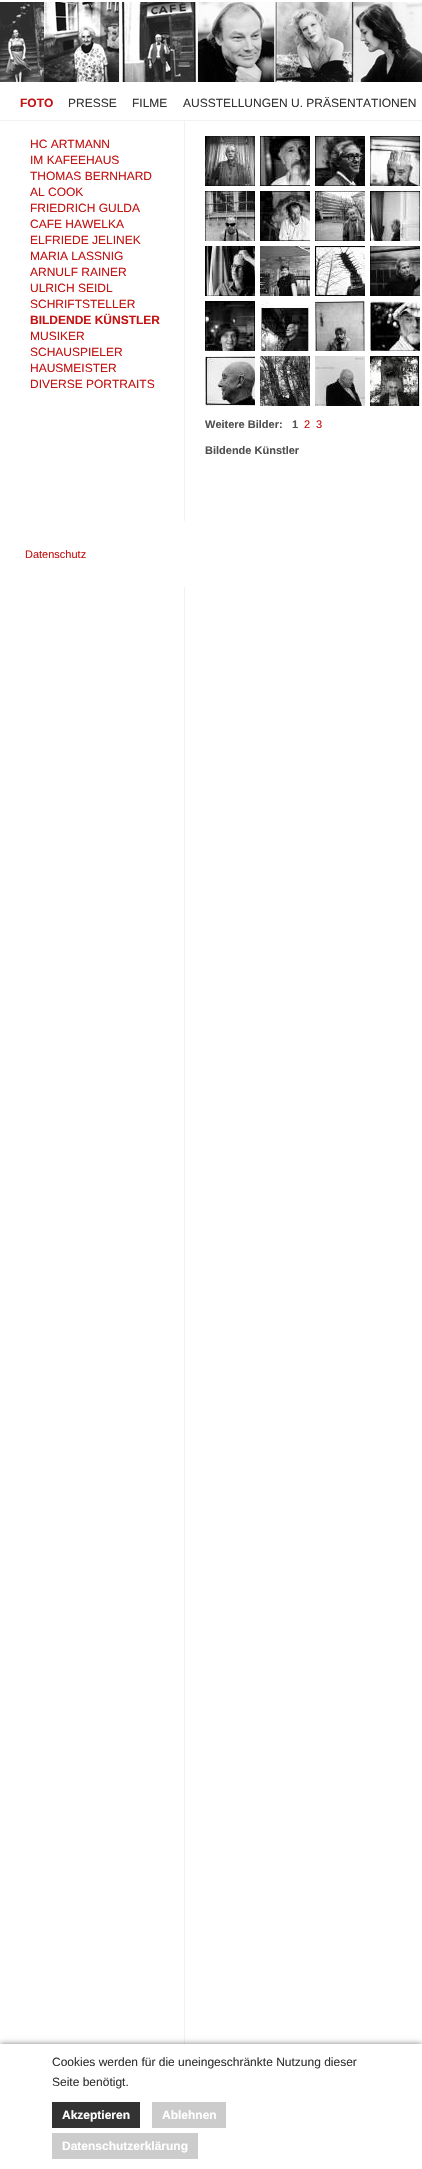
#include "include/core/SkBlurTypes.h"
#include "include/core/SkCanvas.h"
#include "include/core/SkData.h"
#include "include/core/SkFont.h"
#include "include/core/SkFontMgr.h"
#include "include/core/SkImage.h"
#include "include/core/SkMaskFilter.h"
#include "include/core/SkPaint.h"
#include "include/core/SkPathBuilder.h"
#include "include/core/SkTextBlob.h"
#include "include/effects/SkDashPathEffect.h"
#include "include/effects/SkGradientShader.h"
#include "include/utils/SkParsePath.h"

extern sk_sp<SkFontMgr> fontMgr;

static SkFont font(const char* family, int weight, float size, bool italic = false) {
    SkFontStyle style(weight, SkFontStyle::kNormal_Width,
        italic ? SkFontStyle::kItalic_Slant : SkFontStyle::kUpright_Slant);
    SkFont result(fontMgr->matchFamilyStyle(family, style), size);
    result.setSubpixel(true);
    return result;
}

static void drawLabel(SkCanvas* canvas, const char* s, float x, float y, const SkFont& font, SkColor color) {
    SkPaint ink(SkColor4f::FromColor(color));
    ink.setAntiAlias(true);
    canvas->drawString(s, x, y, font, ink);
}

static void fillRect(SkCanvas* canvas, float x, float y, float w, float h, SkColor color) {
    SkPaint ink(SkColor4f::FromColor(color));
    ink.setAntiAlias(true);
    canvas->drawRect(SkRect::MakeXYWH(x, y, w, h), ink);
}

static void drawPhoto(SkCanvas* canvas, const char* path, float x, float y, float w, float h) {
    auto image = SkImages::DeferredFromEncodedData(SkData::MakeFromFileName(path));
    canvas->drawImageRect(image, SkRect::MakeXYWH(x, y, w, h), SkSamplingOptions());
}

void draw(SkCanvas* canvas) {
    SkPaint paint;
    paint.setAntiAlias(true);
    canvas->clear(0xFFFFFFFF);
    fillRect(canvas, 184, 121, 1, 1923, 0xFFF2F2F2);
    drawPhoto(canvas, "assets/img1.png", 0, 2, 422, 80);
    SkFont font1 = font("Liberation Sans", 700, 12);
    drawLabel(canvas, "FOTO", 20, 107, font1, 0xFFC31313);
    SkFont font2 = font("Liberation Sans", 400, 12);
    drawLabel(canvas, "PRESSE", 68, 107, font2, 0xFF333333);
    drawLabel(canvas, "FILME", 132, 107, font2, 0xFF333333);
    drawLabel(canvas, "AUSSTELLUNGEN U. PRÄSENTATIONEN", 183, 107, font2, 0xFF333333);
    fillRect(canvas, 0, 120, 422, 1, 0xFFF2F2F2);
    drawLabel(canvas, "HC ARTMANN", 30, 148, font2, 0xFFC31313);
    drawLabel(canvas, "IM KAFEEHAUS", 30, 164, font2, 0xFFC31313);
    drawLabel(canvas, "THOMAS BERNHARD", 30, 180, font2, 0xFFC31313);
    drawLabel(canvas, "AL COOK", 30, 196, font2, 0xFFC31313);
    drawLabel(canvas, "FRIEDRICH GULDA", 30, 212, font2, 0xFFC31313);
    drawLabel(canvas, "CAFE HAWELKA", 30, 228, font2, 0xFFC31313);
    drawLabel(canvas, "ELFRIEDE JELINEK", 30, 244, font2, 0xFFC31313);
    drawLabel(canvas, "MARIA LASSNIG", 30, 260, font2, 0xFFC31313);
    drawLabel(canvas, "ARNULF RAINER", 30, 276, font2, 0xFFC31313);
    drawLabel(canvas, "ULRICH SEIDL", 30, 292, font2, 0xFFC31313);
    drawLabel(canvas, "SCHRIFTSTELLER", 30, 308, font2, 0xFFC31313);
    drawLabel(canvas, "BILDENDE KÜNSTLER", 30, 324, font1, 0xFFC31313);
    drawLabel(canvas, "MUSIKER", 30, 340, font2, 0xFFC31313);
    drawLabel(canvas, "SCHAUSPIELER", 30, 356, font2, 0xFFC31313);
    drawLabel(canvas, "HAUSMEISTER", 30, 372, font2, 0xFFC31313);
    drawLabel(canvas, "DIVERSE PORTRAITS", 30, 388, font2, 0xFFC31313);
    drawPhoto(canvas, "assets/img2.png", 205, 136, 50, 50);
    drawPhoto(canvas, "assets/img3.png", 260, 136, 50, 50);
    drawPhoto(canvas, "assets/img4.png", 315, 136, 50, 50);
    drawPhoto(canvas, "assets/img5.png", 370, 136, 50, 50);
    drawPhoto(canvas, "assets/img6.png", 205, 191, 50, 50);
    drawPhoto(canvas, "assets/img7.png", 260, 191, 50, 50);
    drawPhoto(canvas, "assets/img8.png", 315, 191, 50, 50);
    drawPhoto(canvas, "assets/img9.png", 370, 191, 50, 50);
    drawPhoto(canvas, "assets/img10.png", 205, 246, 50, 50);
    drawPhoto(canvas, "assets/img11.png", 260, 246, 50, 50);
    drawPhoto(canvas, "assets/img12.png", 315, 246, 50, 50);
    drawPhoto(canvas, "assets/img13.png", 370, 246, 50, 50);
    drawPhoto(canvas, "assets/img14.png", 205, 301, 50, 50);
    drawPhoto(canvas, "assets/img15.png", 260, 301, 50, 50);
    drawPhoto(canvas, "assets/img16.png", 315, 301, 50, 50);
    drawPhoto(canvas, "assets/img17.png", 370, 301, 50, 50);
    drawPhoto(canvas, "assets/img18.png", 205, 356, 50, 50);
    drawPhoto(canvas, "assets/img19.png", 260, 356, 50, 50);
    drawPhoto(canvas, "assets/img20.png", 315, 356, 50, 50);
    drawPhoto(canvas, "assets/img21.png", 370, 356, 50, 50);
    SkFont font3 = font("Liberation Sans", 700, 11);
    drawLabel(canvas, "Weitere Bilder:", 205, 428, font3, 0xFF505050);
    drawLabel(canvas, "1", 292, 428, font3, 0xFF505050);
    SkFont font4 = font("Liberation Sans", 400, 11);
    drawLabel(canvas, "2", 304, 428, font4, 0xFFC31313);
    drawLabel(canvas, "3", 316, 428, font4, 0xFFC31313);
    drawLabel(canvas, "Bildende Künstler", 205, 454, font3, 0xFF505050);
    fillRect(canvas, 184, 521, 1, 66, 0xFFFFFFFF);
    drawLabel(canvas, "Datenschutz", 25, 558, font4, 0xFFC31313);
    paint.setColor(0x80000000);
    paint.setMaskFilter(SkMaskFilter::MakeBlur(kNormal_SkBlurStyle, 3));
    canvas->drawRect(SkRect::MakeXYWH(0, 2044, 422, 125), paint);
    paint.setMaskFilter(nullptr);
    fillRect(canvas, 0, 2044, 422, 125, 0xFFFFFFFF);
    drawLabel(canvas, "Cookies werden für die uneingeschränkte Nutzung dieser", 52, 2066, font2, 0xFF333333);
    drawLabel(canvas, "Seite benötigt.", 52, 2086, font2, 0xFF333333);
    fillRect(canvas, 52, 2102, 88, 26, 0xFF333333);
    drawLabel(canvas, "Akzeptieren", 62, 2119, font1, 0xFFFFFFFF);
    fillRect(canvas, 152, 2102, 74, 26, 0xFFCCCCCC);
    drawLabel(canvas, "Ablehnen", 162, 2119, font1, 0xFFFFFFFF);
    fillRect(canvas, 52, 2133, 146, 26, 0xFFCCCCCC);
    drawLabel(canvas, "Datenschutzerklärung", 62, 2150, font1, 0xFFFFFFFF);
}
